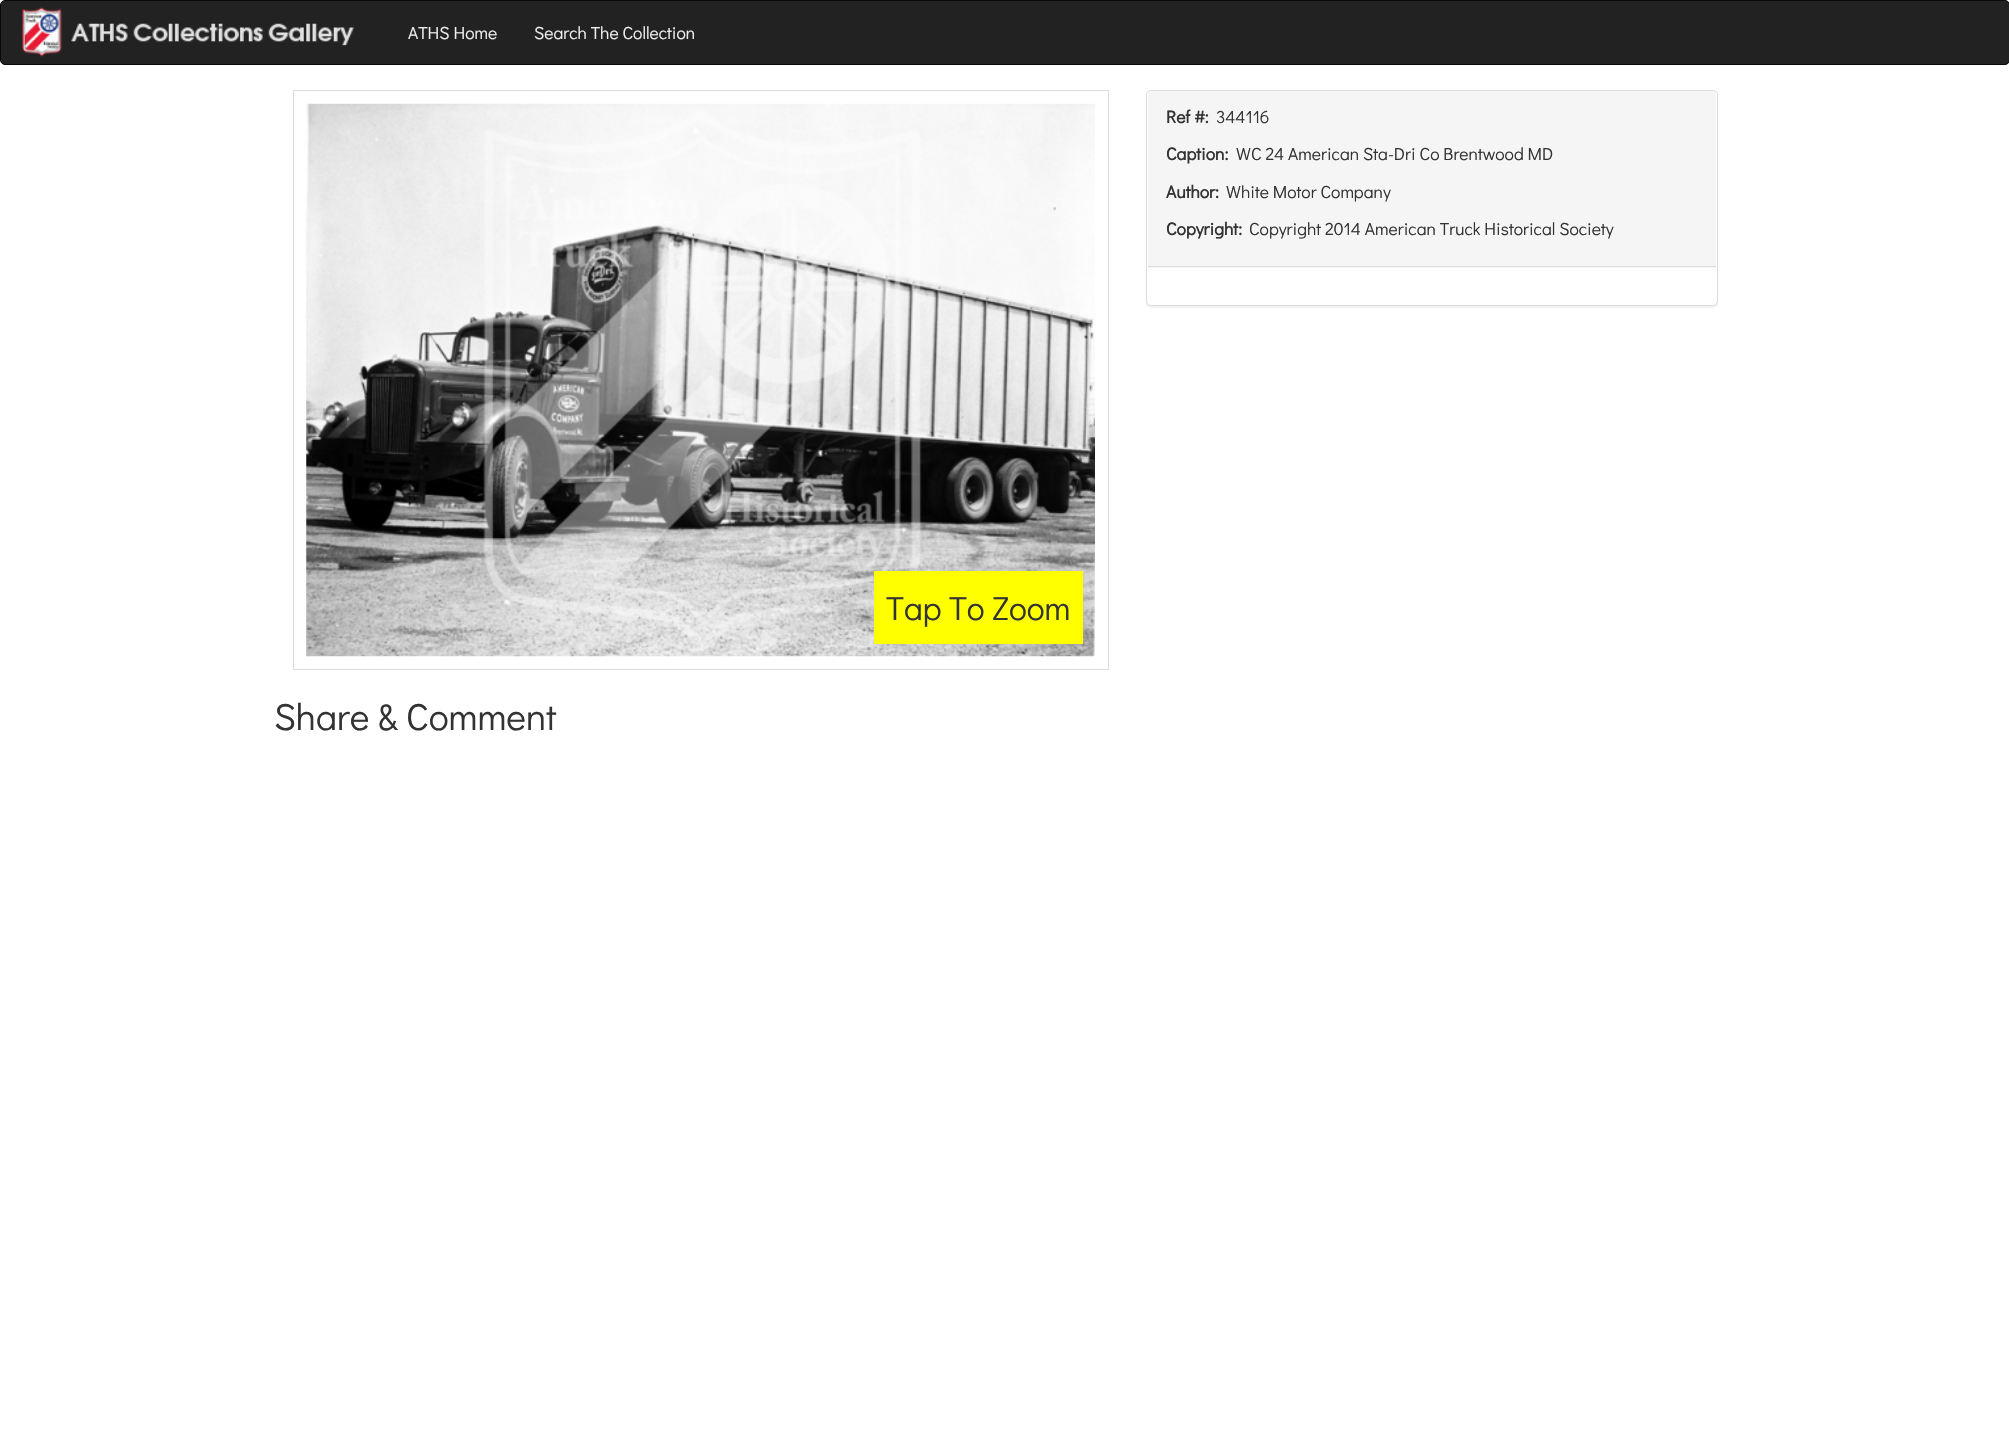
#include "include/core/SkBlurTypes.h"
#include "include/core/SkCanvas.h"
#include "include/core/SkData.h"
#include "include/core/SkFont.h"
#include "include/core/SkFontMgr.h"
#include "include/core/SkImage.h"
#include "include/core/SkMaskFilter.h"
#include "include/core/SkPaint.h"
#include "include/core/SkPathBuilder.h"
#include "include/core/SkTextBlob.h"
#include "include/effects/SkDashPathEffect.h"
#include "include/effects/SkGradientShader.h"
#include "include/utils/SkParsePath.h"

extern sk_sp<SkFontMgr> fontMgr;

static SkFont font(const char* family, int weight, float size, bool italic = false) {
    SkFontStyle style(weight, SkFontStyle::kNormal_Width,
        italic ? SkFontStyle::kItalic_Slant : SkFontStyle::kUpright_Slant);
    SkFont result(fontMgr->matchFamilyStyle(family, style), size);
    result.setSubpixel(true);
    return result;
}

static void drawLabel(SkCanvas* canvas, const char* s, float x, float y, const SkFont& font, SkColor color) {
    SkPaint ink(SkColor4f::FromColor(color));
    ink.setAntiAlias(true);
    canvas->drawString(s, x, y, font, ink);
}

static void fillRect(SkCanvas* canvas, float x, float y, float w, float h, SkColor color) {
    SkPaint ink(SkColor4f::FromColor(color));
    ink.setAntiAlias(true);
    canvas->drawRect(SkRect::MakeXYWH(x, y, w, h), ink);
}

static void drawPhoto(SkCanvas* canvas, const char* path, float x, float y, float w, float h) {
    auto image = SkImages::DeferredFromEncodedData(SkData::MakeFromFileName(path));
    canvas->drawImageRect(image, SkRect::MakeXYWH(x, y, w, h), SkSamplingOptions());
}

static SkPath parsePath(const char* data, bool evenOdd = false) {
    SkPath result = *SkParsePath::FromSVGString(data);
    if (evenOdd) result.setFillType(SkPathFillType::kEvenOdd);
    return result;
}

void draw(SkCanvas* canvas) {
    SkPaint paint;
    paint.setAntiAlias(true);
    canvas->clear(0xFFFFFFFF);
    paint.setColor(0xFF222222);
    canvas->drawRoundRect(SkRect::MakeXYWH(0.5f, 0.5f, 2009, 64), 4.5f, 4.5f, paint);
    paint.setStroke(true);
    paint.setStrokeWidth(1);
    paint.setColor(0xFF080808);
    canvas->drawRoundRect(SkRect::MakeXYWH(0.5f, 0.5f, 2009, 64), 4.5f, 4.5f, paint);
    drawPhoto(canvas, "assets/img1.png", 22, 7, 332, 50);
    SkFont font1 = font("Didact Gothic", 400, 17.5f);
    drawLabel(canvas, "ATHS Home", 408, 39, font1, 0xFFEEEEEE);
    drawLabel(canvas, "Search The Collection", 534, 39, font1, 0xFFEEEEEE);
    paint.setStroke(false);
    paint.setColor(0x0D000000);
    paint.setMaskFilter(SkMaskFilter::MakeBlur(kNormal_SkBlurStyle, 0.5f));
    canvas->drawRoundRect(SkRect::MakeXYWH(1146, 91, 572, 217), 5, 5, paint);
    paint.setMaskFilter(nullptr);
    paint.setColor(0xFFFFFFFF);
    canvas->drawRoundRect(SkRect::MakeXYWH(1146.5f, 90.5f, 571, 215), 4.5f, 4.5f, paint);
    paint.setStroke(true);
    paint.setColor(0xFFDDDDDD);
    canvas->drawRoundRect(SkRect::MakeXYWH(1146.5f, 90.5f, 571, 215), 4.5f, 4.5f, paint);
    paint.setStroke(false);
    paint.setColor(0xFFF5F5F5);
    canvas->drawPath(parsePath("M1152 91H1712C1714 91 1716 93 1716 95V268H1148V95C1148 93 1150 91 1152 91Z"), paint);
    fillRect(canvas, 1148, 266, 568, 1, 0xFFDDDDDD);
    SkFont font2 = font("Didact Gothic", 700, 17.5f);
    drawLabel(canvas, "Ref #:", 1166, 123, font2, 0xFF333333);
    drawLabel(canvas, "344116", 1216, 123, font1, 0xFF333333);
    drawLabel(canvas, "Caption:", 1166, 160, font2, 0xFF333333);
    drawLabel(canvas, "WC 24 American Sta-Dri Co Brentwood MD", 1236, 160, font1, 0xFF333333);
    drawLabel(canvas, "Author:", 1166, 198, font2, 0xFF333333);
    drawLabel(canvas, "White Motor Company", 1226, 198, font1, 0xFF333333);
    drawLabel(canvas, "Copyright:", 1166, 235, font2, 0xFF333333);
    drawLabel(canvas, "Copyright 2014 American Truck Historical Society", 1249, 235, font1, 0xFF333333);
    paint.setStroke(true);
    paint.setColor(0xFFDDDDDD);
    canvas->drawRect(SkRect::MakeXYWH(293.5f, 90.5f, 815, 579), paint);
    drawPhoto(canvas, "assets/img2.png", 306, 103, 789, 554);
    fillRect(canvas, 874, 571, 209, 73, 0xFFFFFF00);
    SkFont font3 = font("Didact Gothic", 400, 33.5f);
    drawLabel(canvas, "Tap To Zoom", 886, 620, font3, 0xFF333333);
    SkFont font4 = font("Didact Gothic", 400, 37.5f);
    drawLabel(canvas, "Share & Comment", 274, 730, font4, 0xFF333333);
}
